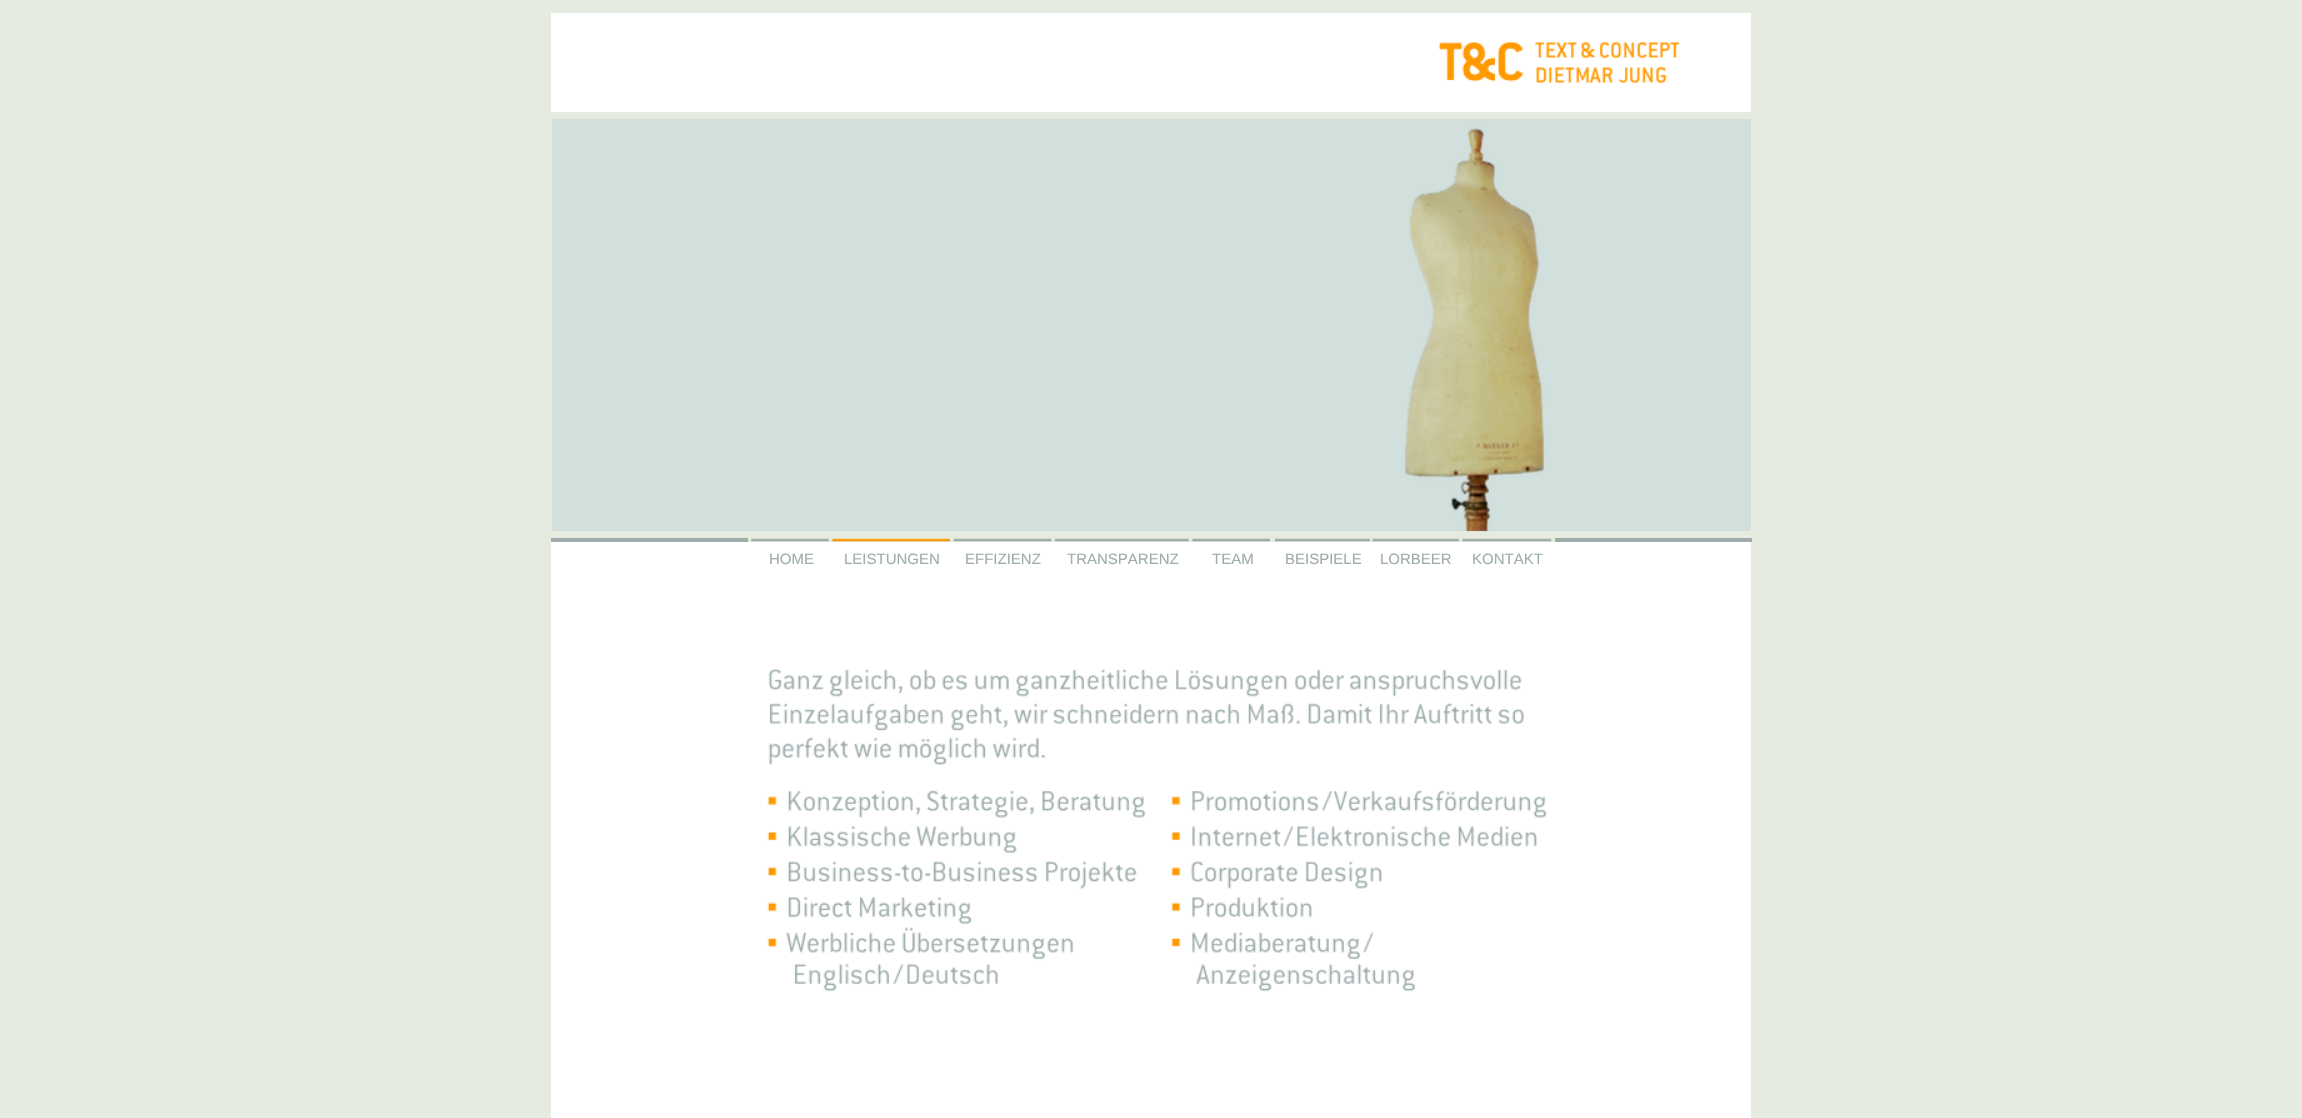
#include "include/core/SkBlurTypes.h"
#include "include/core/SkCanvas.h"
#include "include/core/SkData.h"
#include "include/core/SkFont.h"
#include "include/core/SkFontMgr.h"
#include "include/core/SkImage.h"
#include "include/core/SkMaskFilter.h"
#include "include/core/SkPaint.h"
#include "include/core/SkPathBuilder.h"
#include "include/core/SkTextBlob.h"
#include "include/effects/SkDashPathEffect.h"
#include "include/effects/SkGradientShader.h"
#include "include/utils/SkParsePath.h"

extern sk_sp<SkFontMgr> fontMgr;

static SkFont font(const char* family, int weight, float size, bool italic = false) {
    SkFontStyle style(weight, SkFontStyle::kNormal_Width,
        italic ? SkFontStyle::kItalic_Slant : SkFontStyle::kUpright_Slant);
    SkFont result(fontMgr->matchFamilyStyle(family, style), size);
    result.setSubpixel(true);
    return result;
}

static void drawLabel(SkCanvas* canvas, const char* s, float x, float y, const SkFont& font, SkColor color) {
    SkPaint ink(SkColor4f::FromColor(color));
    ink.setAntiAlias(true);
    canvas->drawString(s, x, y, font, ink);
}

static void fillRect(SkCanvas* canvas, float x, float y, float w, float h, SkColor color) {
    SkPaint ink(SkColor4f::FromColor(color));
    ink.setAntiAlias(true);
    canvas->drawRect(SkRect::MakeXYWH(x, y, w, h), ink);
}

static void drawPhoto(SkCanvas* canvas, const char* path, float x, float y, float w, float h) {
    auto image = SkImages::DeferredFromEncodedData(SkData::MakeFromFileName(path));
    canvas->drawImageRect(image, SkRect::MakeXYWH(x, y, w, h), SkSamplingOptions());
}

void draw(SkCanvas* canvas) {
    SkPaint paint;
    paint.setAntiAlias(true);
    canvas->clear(0xFFE5EBDF);
    fillRect(canvas, 551, 13, 1200, 1105, 0xFFFFFFFF);
    drawPhoto(canvas, "assets/img1.png", 1438, 41, 242, 43);
    fillRect(canvas, 551, 112, 1200, 7, 0xFFE5EBDF);
    fillRect(canvas, 551, 531, 1200, 11, 0xFFE5EBDF);
    drawPhoto(canvas, "assets/img2.png", 551, 119, 1200, 413);
    fillRect(canvas, 551, 538, 197, 4, 0xFF9EACAC);
    fillRect(canvas, 1555, 538, 197, 4, 0xFF9EACAC);
    drawPhoto(canvas, "assets/img3.png", 751, 538, 78, 4);
    SkFont font1 = font("Liberation Sans", 400, 15);
    drawLabel(canvas, "HOME", 769, 564, font1, 0xFF9EACAC);
    drawPhoto(canvas, "assets/img4.png", 832, 538, 118, 4);
    drawLabel(canvas, "LEISTUNGEN", 844, 564, font1, 0xFF9EACAC);
    drawPhoto(canvas, "assets/img5.png", 953, 538, 99, 4);
    drawLabel(canvas, "EFFIZIENZ", 965, 564, font1, 0xFF9EACAC);
    drawPhoto(canvas, "assets/img6.png", 1055, 538, 134, 4);
    drawLabel(canvas, "TRANSPARENZ", 1067, 564, font1, 0xFF9EACAC);
    drawPhoto(canvas, "assets/img7.png", 1192, 538, 78, 4);
    drawLabel(canvas, "TEAM", 1212, 564, font1, 0xFF9EACAC);
    drawPhoto(canvas, "assets/img8.png", 1275, 538, 95, 4);
    drawLabel(canvas, "BEISPIELE", 1285, 564, font1, 0xFF9EACAC);
    drawPhoto(canvas, "assets/img9.png", 1372, 538, 87, 4);
    drawLabel(canvas, "LORBEER", 1380, 564, font1, 0xFF9EACAC);
    drawPhoto(canvas, "assets/img10.png", 1462, 538, 90, 4);
    drawLabel(canvas, "KONTAKT", 1472, 564, font1, 0xFF9EACAC);
    drawPhoto(canvas, "assets/img11.png", 768, 668, 756, 97);
    drawPhoto(canvas, "assets/img12.png", 767, 790, 379, 202);
    drawPhoto(canvas, "assets/img13.png", 1171, 790, 376, 202);
}
